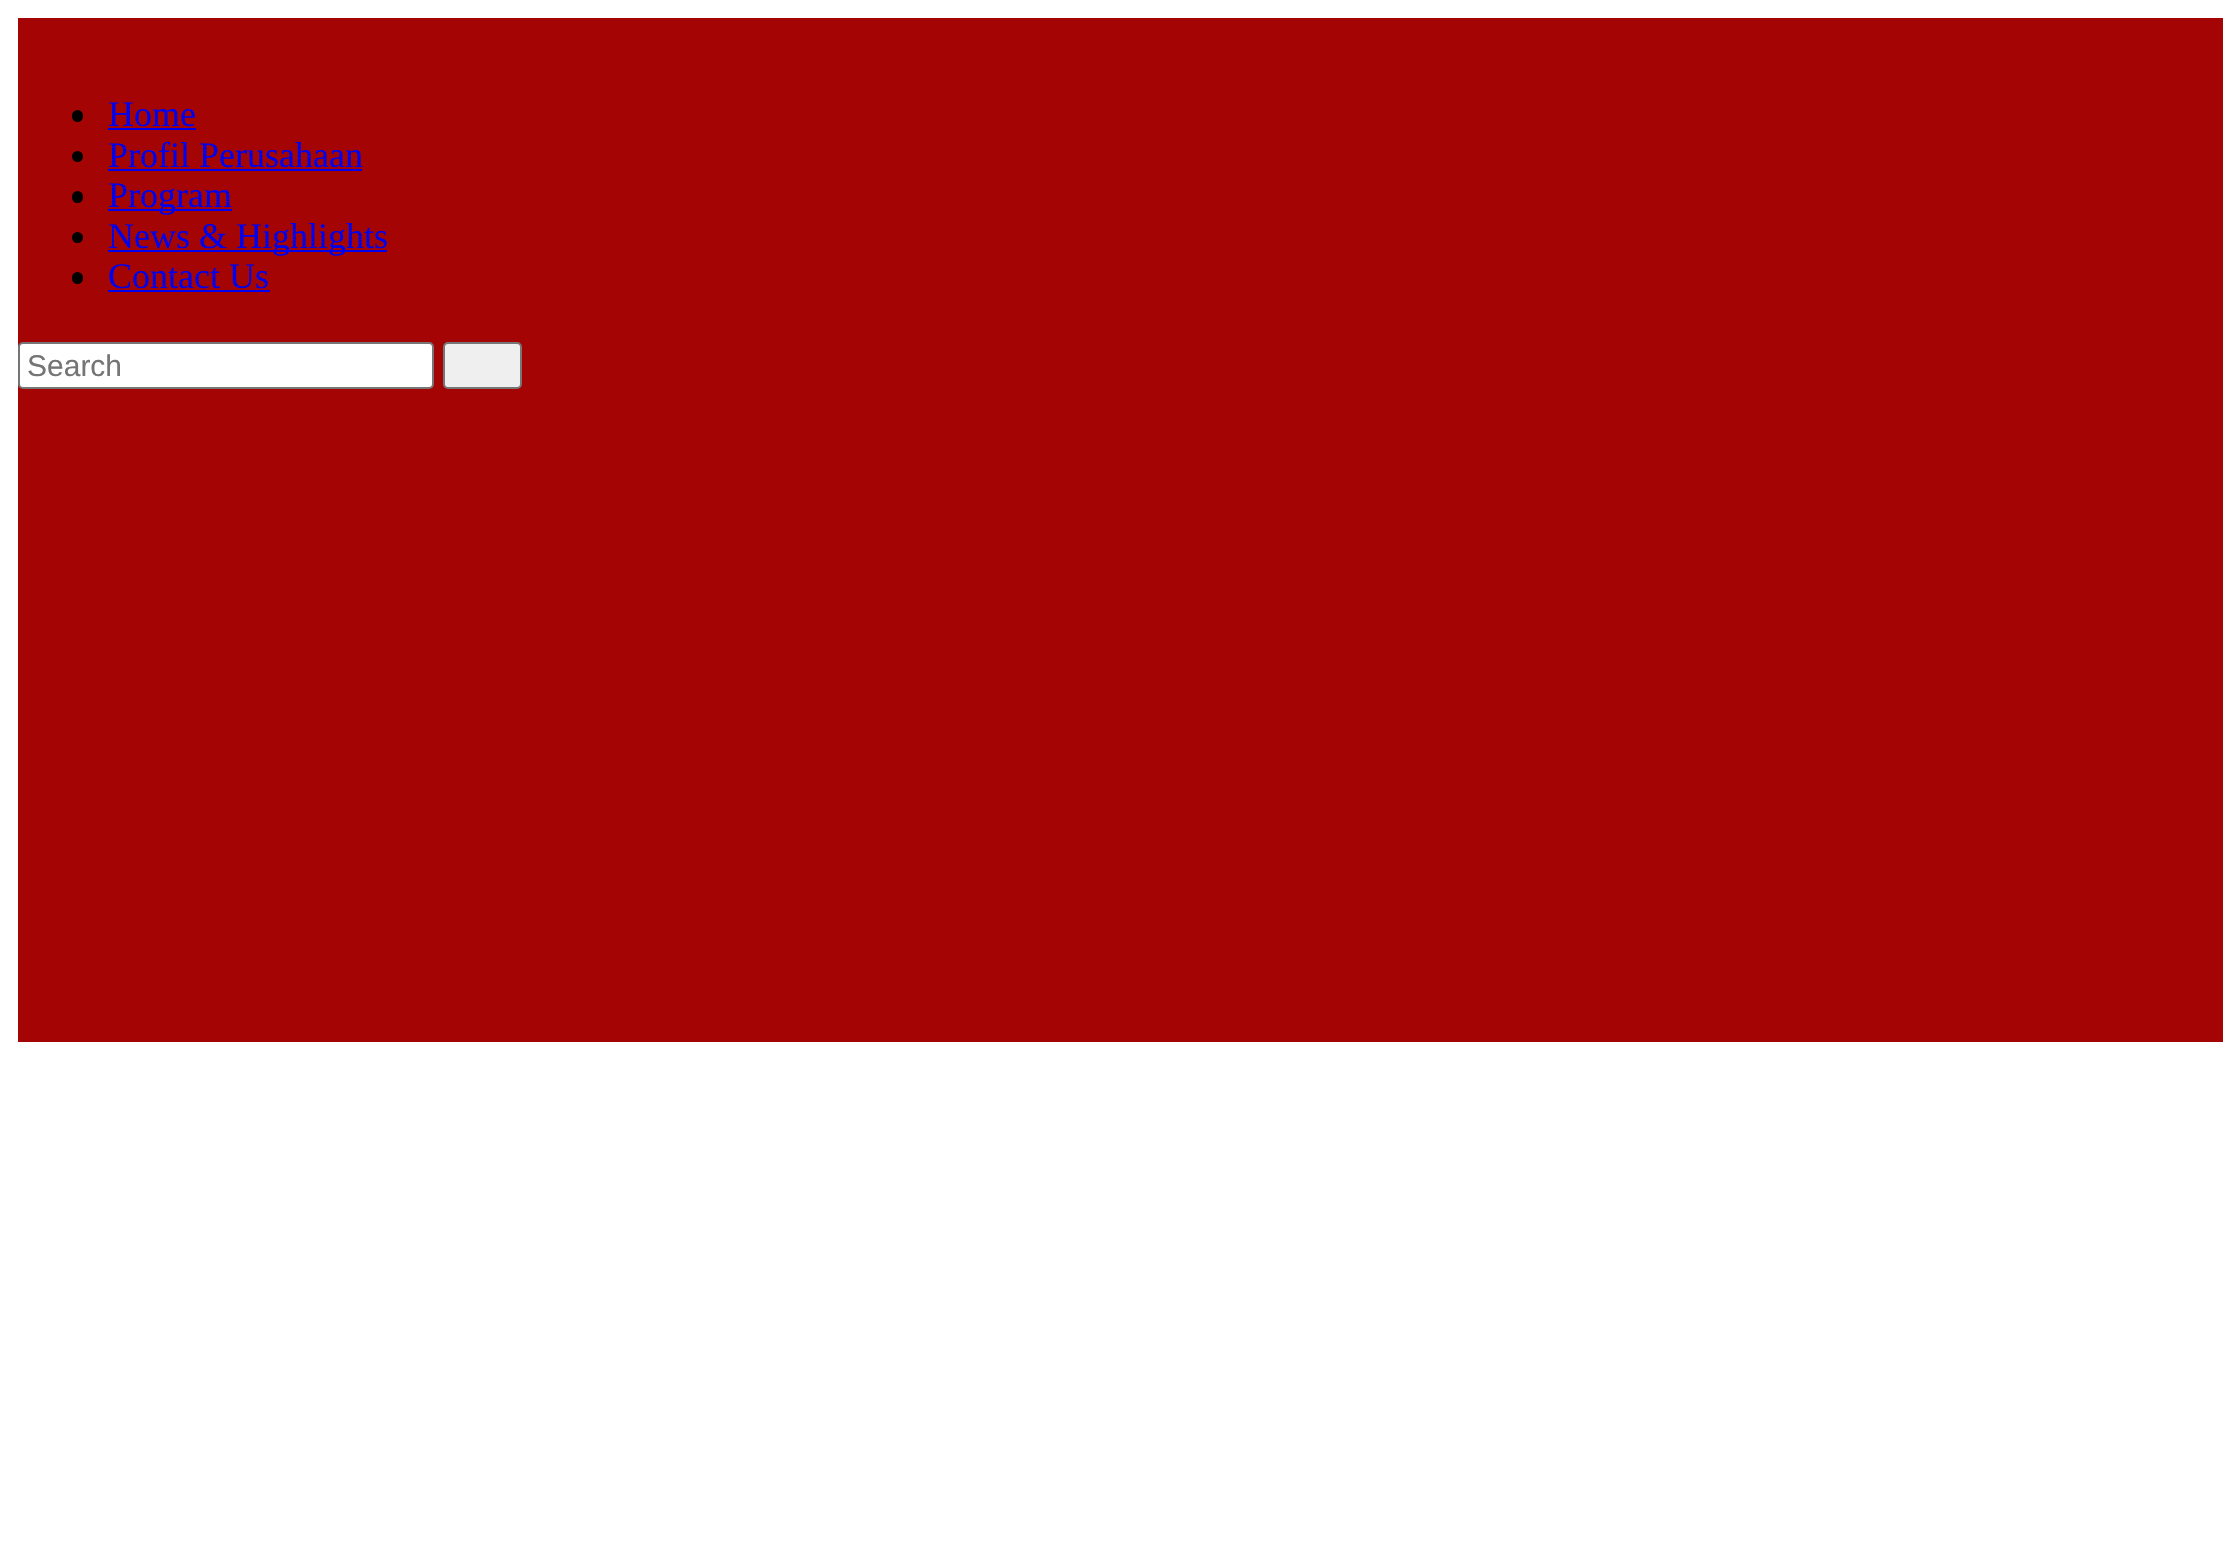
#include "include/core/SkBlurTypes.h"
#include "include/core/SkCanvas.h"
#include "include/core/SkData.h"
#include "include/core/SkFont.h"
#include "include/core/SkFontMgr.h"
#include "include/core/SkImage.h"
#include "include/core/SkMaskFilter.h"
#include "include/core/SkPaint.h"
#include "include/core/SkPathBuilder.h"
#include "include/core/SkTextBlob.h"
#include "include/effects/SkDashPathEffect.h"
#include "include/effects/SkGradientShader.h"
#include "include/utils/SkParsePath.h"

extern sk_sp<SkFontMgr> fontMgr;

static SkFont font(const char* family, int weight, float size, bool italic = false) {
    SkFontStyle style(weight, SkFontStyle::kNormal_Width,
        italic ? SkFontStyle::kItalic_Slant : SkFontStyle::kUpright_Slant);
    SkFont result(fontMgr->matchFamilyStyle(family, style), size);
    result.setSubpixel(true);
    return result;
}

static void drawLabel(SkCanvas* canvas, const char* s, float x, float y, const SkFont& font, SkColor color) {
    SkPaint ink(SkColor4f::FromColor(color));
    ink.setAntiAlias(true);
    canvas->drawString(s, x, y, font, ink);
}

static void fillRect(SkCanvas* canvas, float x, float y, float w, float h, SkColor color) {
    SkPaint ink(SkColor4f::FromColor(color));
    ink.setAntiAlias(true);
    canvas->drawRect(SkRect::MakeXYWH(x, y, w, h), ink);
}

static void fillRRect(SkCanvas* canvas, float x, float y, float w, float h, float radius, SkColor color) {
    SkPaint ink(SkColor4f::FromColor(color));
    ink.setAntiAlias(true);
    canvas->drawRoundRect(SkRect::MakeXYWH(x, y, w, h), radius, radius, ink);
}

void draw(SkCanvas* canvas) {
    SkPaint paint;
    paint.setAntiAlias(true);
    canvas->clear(0xFFFFFFFF);
    fillRect(canvas, 18, 18, 2205, 1024, 0xFFA50404);
    fillRRect(canvas, 72, 110, 11, 12, 5.5f, 0xFF000000);
    SkFont font1 = font("Liberation Serif", 400, 36);
    drawLabel(canvas, "Home", 108, 126, font1, 0xFF0000EE);
    fillRect(canvas, 108, 128, 88, 2, 0xFF0000EE);
    paint.setColor(0xFF000000);
    canvas->drawCircle(77.5f, 156.5f, 5.5f, paint);
    drawLabel(canvas, "Profil Perusahaan", 108, 167, font1, 0xFF0000EE);
    fillRect(canvas, 108, 169, 254, 2, 0xFF0000EE);
    fillRRect(canvas, 72, 191, 11, 12, 5.5f, 0xFF000000);
    fillRect(canvas, 108, 209, 124, 2, 0xFF0000EE);
    drawLabel(canvas, "Program", 108, 207, font1, 0xFF0000EE);
    canvas->drawCircle(77.5f, 237.5f, 5.5f, paint);
    fillRect(canvas, 108, 250, 279, 2, 0xFF0000EE);
    drawLabel(canvas, "News & Highlights", 108, 248, font1, 0xFF0000EE);
    fillRRect(canvas, 72, 272, 11, 12, 5.5f, 0xFF000000);
    drawLabel(canvas, "Contact Us", 108, 288, font1, 0xFF0000EE);
    fillRect(canvas, 108, 290, 162, 2, 0xFF0000EE);
    paint.setColor(0xFFFFFFFF);
    canvas->drawRoundRect(SkRect::MakeXYWH(19, 343, 414, 45), 4, 4, paint);
    paint.setStroke(true);
    paint.setStrokeWidth(2);
    paint.setColor(0xFF767676);
    canvas->drawRoundRect(SkRect::MakeXYWH(19, 343, 414, 45), 4, 4, paint);
    SkFont font2 = font("Liberation Sans", 400, 30);
    drawLabel(canvas, "Search", 27, 376, font2, 0xFF757575);
    paint.setStroke(false);
    paint.setColor(0xFFEFEFEF);
    canvas->drawRoundRect(SkRect::MakeXYWH(444, 343, 77, 45), 4, 4, paint);
    paint.setStroke(true);
    paint.setColor(0xFF767676);
    canvas->drawRoundRect(SkRect::MakeXYWH(444, 343, 77, 45), 4, 4, paint);
}
